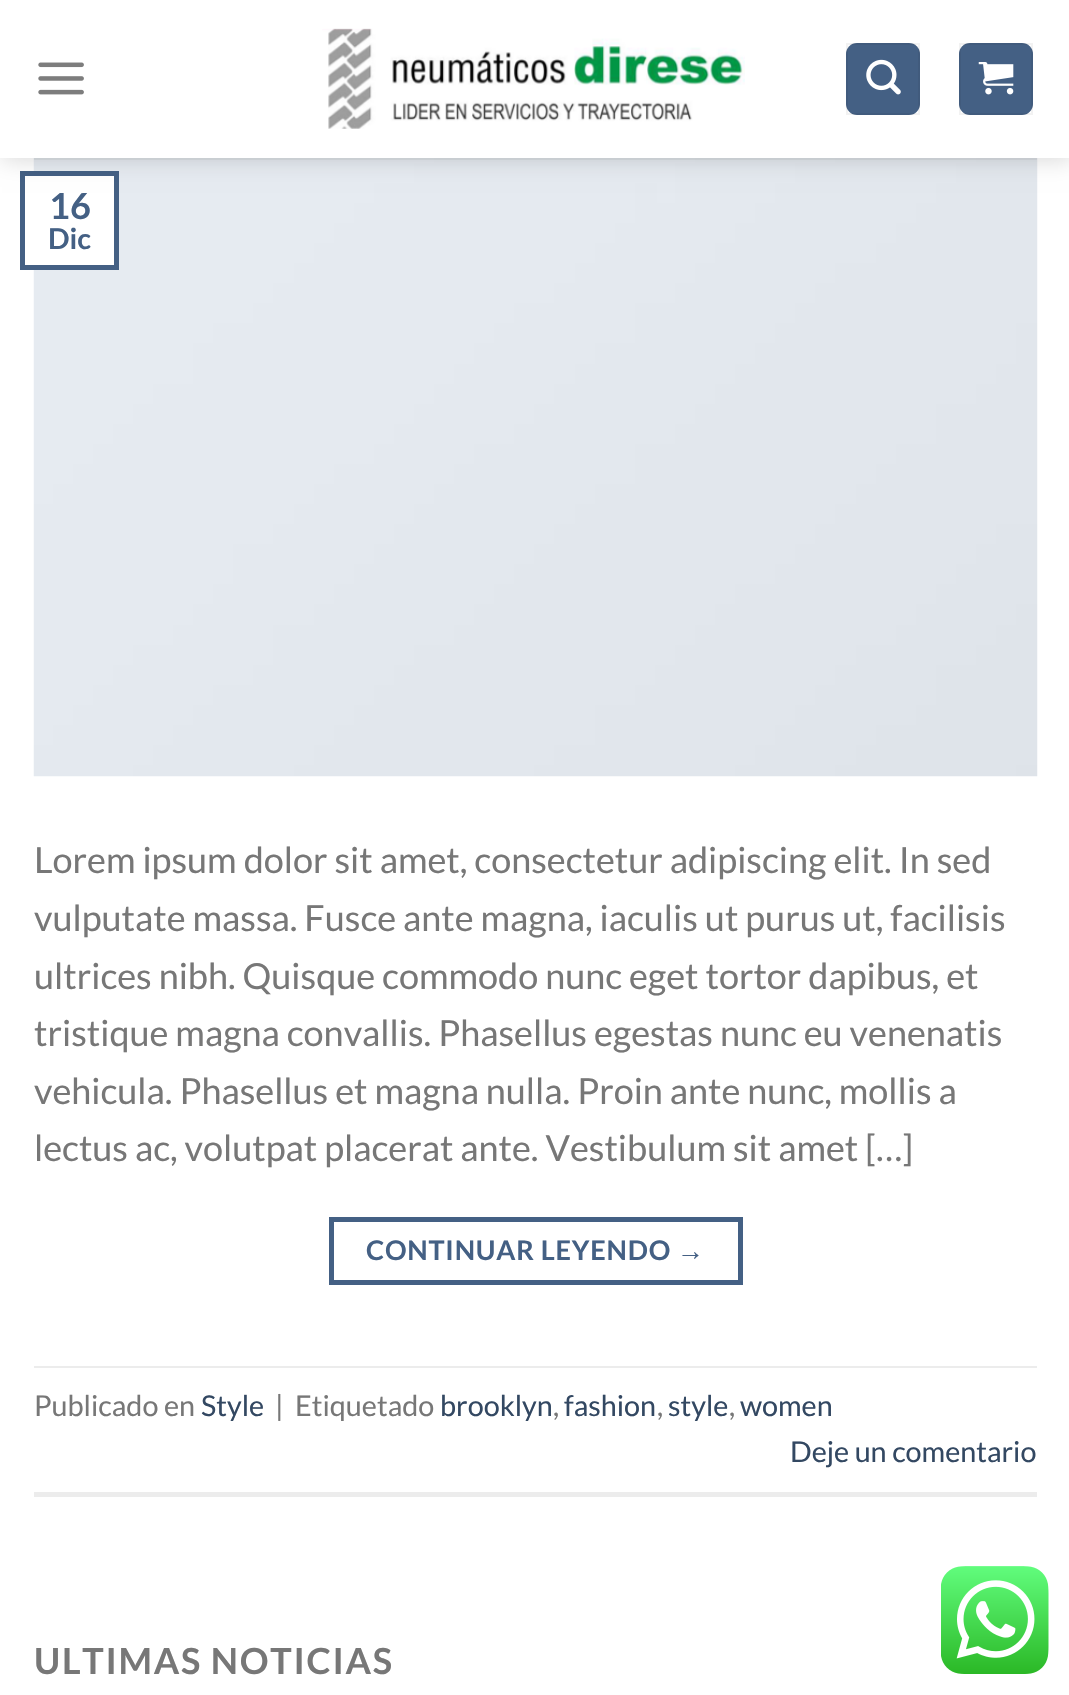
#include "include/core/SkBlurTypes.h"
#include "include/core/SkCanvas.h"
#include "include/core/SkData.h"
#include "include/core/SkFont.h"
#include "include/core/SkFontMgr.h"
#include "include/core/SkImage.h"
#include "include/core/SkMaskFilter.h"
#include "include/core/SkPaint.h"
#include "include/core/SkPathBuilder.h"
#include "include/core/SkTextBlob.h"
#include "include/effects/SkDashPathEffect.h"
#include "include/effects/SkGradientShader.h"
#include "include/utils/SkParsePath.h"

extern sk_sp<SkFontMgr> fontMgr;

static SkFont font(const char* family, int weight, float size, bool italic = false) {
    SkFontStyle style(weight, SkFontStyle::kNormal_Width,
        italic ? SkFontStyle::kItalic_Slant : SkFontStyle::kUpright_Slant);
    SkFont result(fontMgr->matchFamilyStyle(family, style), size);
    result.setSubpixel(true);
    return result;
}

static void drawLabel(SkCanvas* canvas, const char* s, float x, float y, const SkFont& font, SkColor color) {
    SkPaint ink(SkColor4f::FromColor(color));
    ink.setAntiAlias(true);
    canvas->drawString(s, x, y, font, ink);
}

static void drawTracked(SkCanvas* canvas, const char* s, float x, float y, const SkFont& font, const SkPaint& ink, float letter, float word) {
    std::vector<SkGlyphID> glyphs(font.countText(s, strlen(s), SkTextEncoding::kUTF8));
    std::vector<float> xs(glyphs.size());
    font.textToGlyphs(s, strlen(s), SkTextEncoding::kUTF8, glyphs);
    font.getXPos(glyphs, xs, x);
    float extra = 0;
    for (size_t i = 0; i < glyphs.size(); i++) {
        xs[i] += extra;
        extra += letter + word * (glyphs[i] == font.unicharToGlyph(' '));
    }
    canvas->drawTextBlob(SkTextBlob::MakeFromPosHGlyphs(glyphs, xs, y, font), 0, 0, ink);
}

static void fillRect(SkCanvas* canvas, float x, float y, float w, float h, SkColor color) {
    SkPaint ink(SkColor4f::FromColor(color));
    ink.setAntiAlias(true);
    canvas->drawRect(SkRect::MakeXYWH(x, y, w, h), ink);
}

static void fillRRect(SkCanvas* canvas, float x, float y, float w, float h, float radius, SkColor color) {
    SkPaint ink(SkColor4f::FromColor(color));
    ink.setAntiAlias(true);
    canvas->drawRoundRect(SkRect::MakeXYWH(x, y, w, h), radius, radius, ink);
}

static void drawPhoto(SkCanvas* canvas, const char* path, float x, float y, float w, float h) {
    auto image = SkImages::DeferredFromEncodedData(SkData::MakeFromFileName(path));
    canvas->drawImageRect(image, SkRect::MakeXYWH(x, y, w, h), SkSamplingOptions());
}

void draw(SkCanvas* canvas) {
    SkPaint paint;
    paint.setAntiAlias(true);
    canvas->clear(0xFFFFFFFF);
    drawPhoto(canvas, "assets/img5.png", 33, 158, 1005, 619);
    fillRect(canvas, 33, 176, 81, 89, 0xFFFFFFFF);
    paint.setStroke(true);
    paint.setStrokeWidth(5);
    paint.setColor(0xFF446084);
    canvas->drawRect(SkRect::MakeXYWH(22.5f, 173.5f, 94, 94), paint);
    paint.setStroke(false);
    paint.setColor(0x26000000);
    paint.setMaskFilter(SkMaskFilter::MakeBlur(kNormal_SkBlurStyle, 11));
    canvas->drawRect(SkRect::MakeXYWH(2, 2, 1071, 158), paint);
    paint.setMaskFilter(nullptr);
    fillRect(canvas, 0, 0, 1069, 158, 0xFFFFFFFF);
    drawPhoto(canvas, "assets/img1.png", 38, 62, 46, 33);
    drawPhoto(canvas, "assets/img2.png", 322, 28, 423, 101);
    fillRRect(canvas, 846, 43, 74, 72, 11, 0xFF446084);
    paint.setStroke(true);
    paint.setStrokeWidth(2);
    paint.setColor(0x0D000000);
    canvas->drawRect(SkRect::MakeXYWH(847, 44, 72, 70), paint);
    drawPhoto(canvas, "assets/img3.png", 866, 59, 35, 36);
    fillRRect(canvas, 959, 43, 74, 72, 11, 0xFF446084);
    canvas->drawRect(SkRect::MakeXYWH(960, 44, 72, 70), paint);
    drawPhoto(canvas, "assets/img4.png", 978, 62, 36, 33);
    fillRect(canvas, 34, 158, 1003, 2, 0x1A777777);
    SkFont font1 = font("Lato", 700, 36);
    drawLabel(canvas, "16", 49, 219, font1, 0xFF446084);
    SkFont font2 = font("Lato", 700, 28.75f);
    drawLabel(canvas, "Dic", 48, 249, font2, 0xFF446084);
    SkFont font3 = font("Lato", 400, 36);
    drawLabel(canvas, "Lorem ipsum dolor sit amet, consectetur adipiscing elit. In sed", 34, 873, font3, 0xFF777777);
    drawLabel(canvas, "vulputate massa. Fusce ante magna, iaculis ut purus ut, facilisis", 34, 931, font3, 0xFF777777);
    drawLabel(canvas, "ultrices nibh. Quisque commodo nunc eget tortor dapibus, et", 34, 989, font3, 0xFF777777);
    drawLabel(canvas, "tristique magna convallis. Phasellus egestas nunc eu venenatis", 34, 1046, font3, 0xFF777777);
    drawLabel(canvas, "vehicula. Phasellus et magna nulla. Proin ante nunc, mollis a", 34, 1104, font3, 0xFF777777);
    drawLabel(canvas, "lectus ac, volutpat placerat ante. Vestibulum sit amet […]", 34, 1161, font3, 0xFF777777);
    paint.setStrokeWidth(5);
    paint.setColor(0xFF446084);
    canvas->drawRect(SkRect::MakeXYWH(331.5f, 1219.5f, 409, 63), paint);
    SkFont font4 = font("Lato", 700, 27);
    paint.setStroke(false);
    drawTracked(canvas, "CONTINUAR LEYENDO", 366, 1260, font4, paint, 0.8f, 0);
    SkFont font5 = font("Liberation Sans", 700, 27);
    drawTracked(canvas, "→", 677, 1260, font5, paint, 0.8f, 0);
    fillRect(canvas, 34, 1366, 1003, 2, 0xFFECECEC);
    fillRect(canvas, 34, 1492, 1003, 5, 0xFFECECEC);
    SkFont font6 = font("Lato", 400, 28.75f);
    drawLabel(canvas, "Publicado en", 34, 1416, font6, 0xFF777777);
    drawLabel(canvas, "Style", 201, 1416, font6, 0xFF334862);
    drawLabel(canvas, "|", 275, 1416, font6, 0xFF777777);
    drawLabel(canvas, "Etiquetado", 295, 1416, font6, 0xFF777777);
    drawLabel(canvas, "brooklyn", 440, 1416, font6, 0xFF334862);
    drawLabel(canvas, ",", 553, 1416, font6, 0xFF777777);
    drawLabel(canvas, "fashion", 564, 1416, font6, 0xFF334862);
    drawLabel(canvas, ",", 657, 1416, font6, 0xFF777777);
    drawLabel(canvas, "style", 668, 1416, font6, 0xFF334862);
    drawLabel(canvas, ",", 729, 1416, font6, 0xFF777777);
    drawLabel(canvas, "women", 740, 1416, font6, 0xFF334862);
    drawLabel(canvas, "Deje un comentario", 790, 1462, font6, 0xFF334862);
    paint.setColor(0xFF777777);
    drawTracked(canvas, "ULTIMAS NOTICIAS", 34, 1674, font1, paint, 1.75f, 0);
    drawPhoto(canvas, "assets/img6.png", 941, 1566, 108, 108);
}
